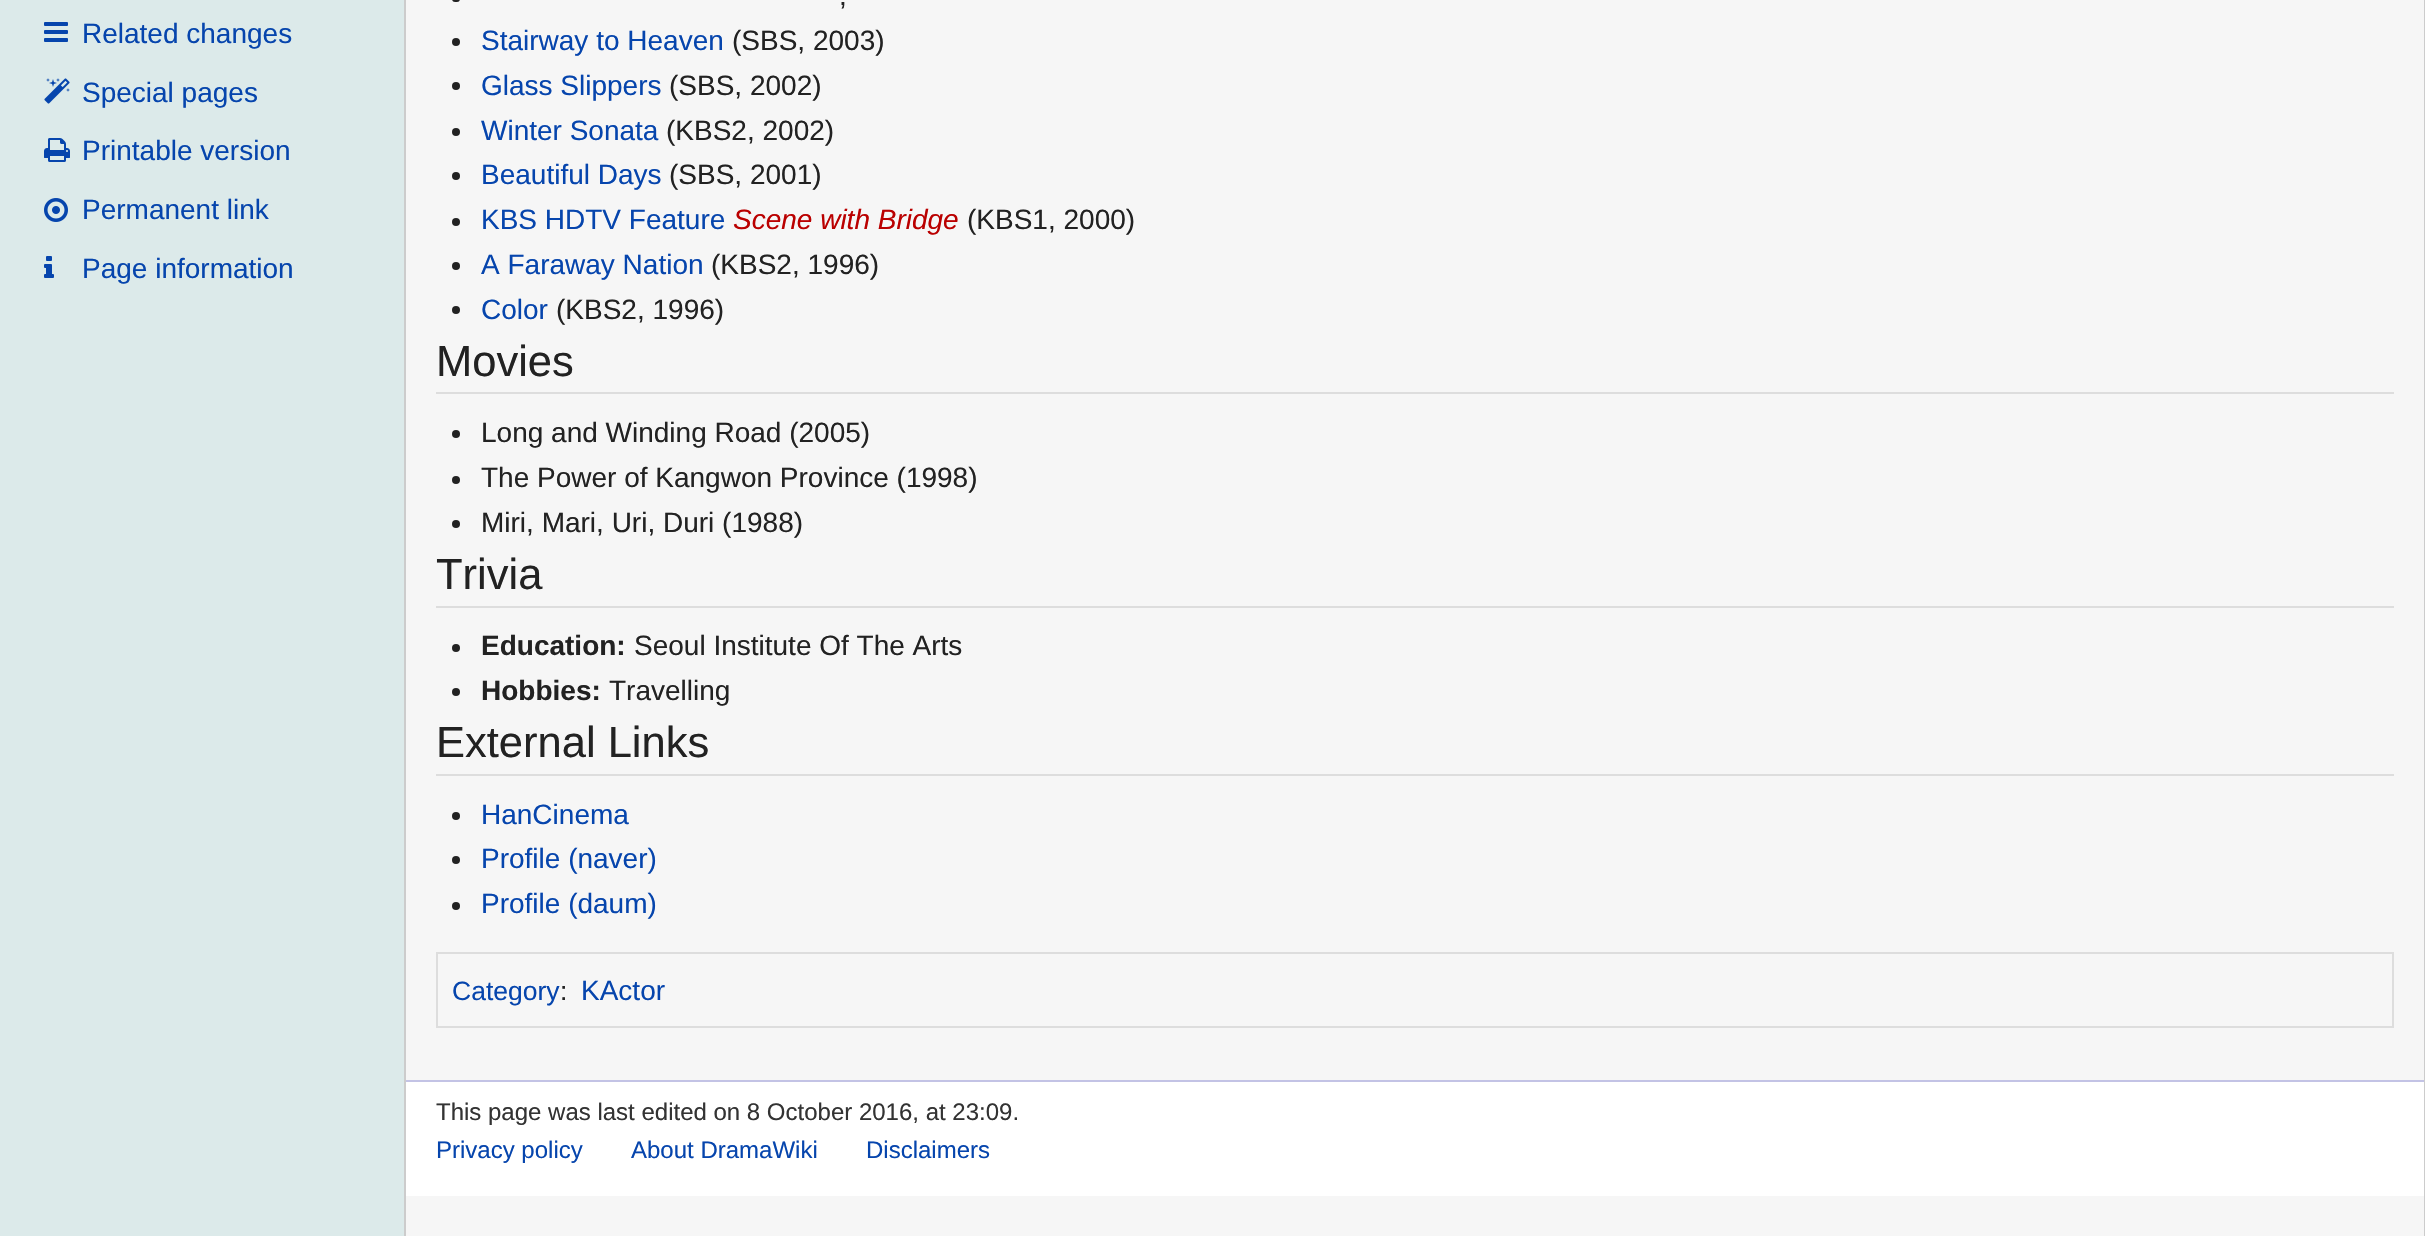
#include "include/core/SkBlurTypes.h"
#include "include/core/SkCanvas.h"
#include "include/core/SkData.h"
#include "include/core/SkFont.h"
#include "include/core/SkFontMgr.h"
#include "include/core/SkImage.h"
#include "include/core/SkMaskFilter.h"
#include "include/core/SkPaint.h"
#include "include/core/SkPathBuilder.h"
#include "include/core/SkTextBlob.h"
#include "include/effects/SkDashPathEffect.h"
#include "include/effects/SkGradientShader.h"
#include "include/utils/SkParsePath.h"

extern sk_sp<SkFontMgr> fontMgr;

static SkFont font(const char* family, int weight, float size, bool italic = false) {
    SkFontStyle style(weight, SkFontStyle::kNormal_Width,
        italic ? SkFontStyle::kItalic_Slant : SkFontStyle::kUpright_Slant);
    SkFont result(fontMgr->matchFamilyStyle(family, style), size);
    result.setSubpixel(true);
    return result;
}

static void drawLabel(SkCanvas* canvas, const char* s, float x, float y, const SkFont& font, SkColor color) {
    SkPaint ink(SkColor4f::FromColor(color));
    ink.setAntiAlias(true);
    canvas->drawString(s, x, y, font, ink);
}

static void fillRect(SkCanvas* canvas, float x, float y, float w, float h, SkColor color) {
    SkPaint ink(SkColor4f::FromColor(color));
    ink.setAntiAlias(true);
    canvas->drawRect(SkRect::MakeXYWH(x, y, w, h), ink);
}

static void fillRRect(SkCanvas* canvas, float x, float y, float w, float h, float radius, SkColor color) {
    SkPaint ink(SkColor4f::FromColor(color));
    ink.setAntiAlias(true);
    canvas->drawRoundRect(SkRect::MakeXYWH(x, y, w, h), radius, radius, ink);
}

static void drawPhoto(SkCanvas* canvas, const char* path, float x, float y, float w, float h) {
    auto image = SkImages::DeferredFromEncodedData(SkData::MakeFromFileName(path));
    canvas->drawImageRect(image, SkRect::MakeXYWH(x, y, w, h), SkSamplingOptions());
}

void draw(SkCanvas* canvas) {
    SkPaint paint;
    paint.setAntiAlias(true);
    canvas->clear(0xFFDCEAEA);
    drawPhoto(canvas, "assets/img1.png", 44, 22, 24, 20);
    SkFont font1 = font("Liberation Sans", 400, 28);
    drawLabel(canvas, "Related changes", 82, 43, font1, 0xFF0645AD);
    drawPhoto(canvas, "assets/img2.png", 44, 78, 26, 26);
    drawLabel(canvas, "Special pages", 82, 102, font1, 0xFF0645AD);
    drawPhoto(canvas, "assets/img3.png", 44, 138, 26, 24);
    drawLabel(canvas, "Printable version", 82, 160, font1, 0xFF0645AD);
    drawPhoto(canvas, "assets/img4.png", 44, 198, 24, 24);
    drawLabel(canvas, "Permanent link", 82, 219, font1, 0xFF0645AD);
    drawPhoto(canvas, "assets/img5.png", 44, 256, 10, 22);
    drawLabel(canvas, "Page information", 82, 278, font1, 0xFF0645AD);
    fillRect(canvas, 406, 0, 2018, 1236, 0xFFF6F6F6);
    fillRect(canvas, 2424, 0, 1, 1236, 0xFFCCCCCC);
    fillRect(canvas, 404, 0, 2, 1236, 0xFFCCCCCC);
    fillRRect(canvas, 452, -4, 8, 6, 4, 0xFF222222);
    drawLabel(canvas, ",", 839, 5, font1, 0xFF222222);
    paint.setColor(0xFF222222);
    canvas->drawCircle(456, 42, 4, paint);
    drawLabel(canvas, "Stairway to Heaven", 481, 50, font1, 0xFF0645AD);
    drawLabel(canvas, "(SBS, 2003)", 732, 50, font1, 0xFF222222);
    canvas->drawCircle(456, 86, 4, paint);
    drawLabel(canvas, "Glass Slippers", 481, 95, font1, 0xFF0645AD);
    drawLabel(canvas, "(SBS, 2002)", 669, 95, font1, 0xFF222222);
    canvas->drawCircle(456, 132, 4, paint);
    drawLabel(canvas, "Winter Sonata", 481, 140, font1, 0xFF0645AD);
    drawLabel(canvas, "(KBS2, 2002)", 666, 140, font1, 0xFF222222);
    canvas->drawCircle(456, 176, 4, paint);
    drawLabel(canvas, "Beautiful Days", 481, 184, font1, 0xFF0645AD);
    drawLabel(canvas, "(SBS, 2001)", 669, 184, font1, 0xFF222222);
    canvas->drawCircle(456, 222, 4, paint);
    drawLabel(canvas, "KBS HDTV Feature", 481, 229, font1, 0xFF0645AD);
    SkFont font2 = font("Liberation Sans", 400, 28, true);
    drawLabel(canvas, "Scene with Bridge", 733, 229, font2, 0xFFBA0000);
    drawLabel(canvas, "(KBS1, 2000)", 967, 229, font1, 0xFF222222);
    canvas->drawCircle(456, 266, 4, paint);
    drawLabel(canvas, "A Faraway Nation", 481, 274, font1, 0xFF0645AD);
    drawLabel(canvas, "(KBS2, 1996)", 711, 274, font1, 0xFF222222);
    canvas->drawCircle(456, 310, 4, paint);
    drawLabel(canvas, "Color", 481, 319, font1, 0xFF0645AD);
    drawLabel(canvas, "(KBS2, 1996)", 556, 319, font1, 0xFF222222);
    fillRect(canvas, 436, 392, 1958, 2, 0xFFDDDDDD);
    SkFont font3 = font("Liberation Sans", 400, 43.5f);
    drawLabel(canvas, "Movies", 436, 376, font3, 0xFF222222);
    canvas->drawCircle(456, 434, 4, paint);
    drawLabel(canvas, "Long and Winding Road (2005)", 481, 442, font1, 0xFF222222);
    canvas->drawCircle(456, 480, 4, paint);
    drawLabel(canvas, "The Power of Kangwon Province (1998)", 481, 487, font1, 0xFF222222);
    canvas->drawCircle(456, 524, 4, paint);
    drawLabel(canvas, "Miri, Mari, Uri, Duri (1988)", 481, 532, font1, 0xFF222222);
    fillRect(canvas, 436, 606, 1958, 2, 0xFFDDDDDD);
    drawLabel(canvas, "Trivia", 436, 589, font3, 0xFF222222);
    canvas->drawCircle(456, 648, 4, paint);
    SkFont font4 = font("Liberation Sans", 700, 28);
    drawLabel(canvas, "Education:", 481, 655, font4, 0xFF222222);
    drawLabel(canvas, "Seoul Institute Of The Arts", 634, 655, font1, 0xFF222222);
    canvas->drawCircle(456, 692, 4, paint);
    drawLabel(canvas, "Hobbies:", 481, 700, font4, 0xFF222222);
    drawLabel(canvas, "Travelling", 609, 700, font1, 0xFF222222);
    fillRect(canvas, 436, 774, 1958, 2, 0xFFDDDDDD);
    drawLabel(canvas, "External Links", 436, 757, font3, 0xFF222222);
    canvas->drawCircle(456, 816, 4, paint);
    drawLabel(canvas, "HanCinema", 481, 824, font1, 0xFF0645AD);
    canvas->drawCircle(456, 860, 4, paint);
    drawLabel(canvas, "Profile (naver)", 481, 868, font1, 0xFF0645AD);
    canvas->drawCircle(456, 906, 4, paint);
    drawLabel(canvas, "Profile (daum)", 481, 913, font1, 0xFF0645AD);
    paint.setStroke(true);
    paint.setStrokeWidth(2);
    paint.setColor(0xFFDDDDDD);
    canvas->drawRect(SkRect::MakeXYWH(437, 953, 1956, 74), paint);
    SkFont font5 = font("Liberation Sans", 400, 26.5f);
    drawLabel(canvas, "Category", 452, 1000, font5, 0xFF0645AD);
    drawLabel(canvas, ":", 560, 1000, font5, 0xFF222222);
    drawLabel(canvas, "KActor", 581, 1000, font1, 0xFF0645AD);
    fillRect(canvas, 406, 1082, 2018, 114, 0xFFFFFFFF);
    fillRect(canvas, 406, 1080, 2018, 2, 0xFFC3C3E5);
    SkFont font6 = font("Liberation Sans", 400, 24);
    drawLabel(canvas, "This page was last edited on 8 October 2016, at 23:09.", 436, 1120, font6, 0xFF333333);
    drawLabel(canvas, "Privacy policy", 436, 1158, font6, 0xFF0645AD);
    drawLabel(canvas, "About DramaWiki", 631, 1158, font6, 0xFF0645AD);
    drawLabel(canvas, "Disclaimers", 866, 1158, font6, 0xFF0645AD);
}
